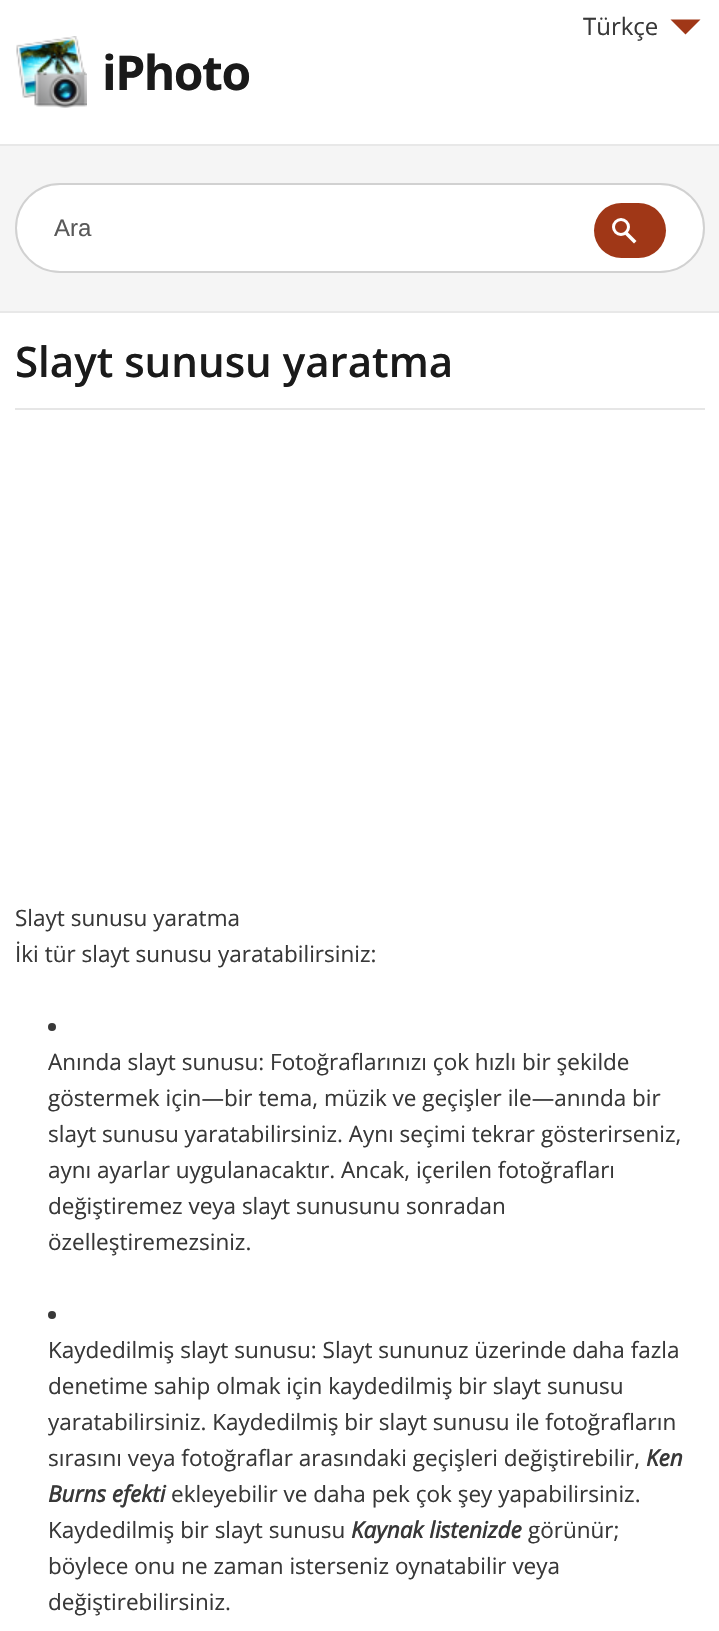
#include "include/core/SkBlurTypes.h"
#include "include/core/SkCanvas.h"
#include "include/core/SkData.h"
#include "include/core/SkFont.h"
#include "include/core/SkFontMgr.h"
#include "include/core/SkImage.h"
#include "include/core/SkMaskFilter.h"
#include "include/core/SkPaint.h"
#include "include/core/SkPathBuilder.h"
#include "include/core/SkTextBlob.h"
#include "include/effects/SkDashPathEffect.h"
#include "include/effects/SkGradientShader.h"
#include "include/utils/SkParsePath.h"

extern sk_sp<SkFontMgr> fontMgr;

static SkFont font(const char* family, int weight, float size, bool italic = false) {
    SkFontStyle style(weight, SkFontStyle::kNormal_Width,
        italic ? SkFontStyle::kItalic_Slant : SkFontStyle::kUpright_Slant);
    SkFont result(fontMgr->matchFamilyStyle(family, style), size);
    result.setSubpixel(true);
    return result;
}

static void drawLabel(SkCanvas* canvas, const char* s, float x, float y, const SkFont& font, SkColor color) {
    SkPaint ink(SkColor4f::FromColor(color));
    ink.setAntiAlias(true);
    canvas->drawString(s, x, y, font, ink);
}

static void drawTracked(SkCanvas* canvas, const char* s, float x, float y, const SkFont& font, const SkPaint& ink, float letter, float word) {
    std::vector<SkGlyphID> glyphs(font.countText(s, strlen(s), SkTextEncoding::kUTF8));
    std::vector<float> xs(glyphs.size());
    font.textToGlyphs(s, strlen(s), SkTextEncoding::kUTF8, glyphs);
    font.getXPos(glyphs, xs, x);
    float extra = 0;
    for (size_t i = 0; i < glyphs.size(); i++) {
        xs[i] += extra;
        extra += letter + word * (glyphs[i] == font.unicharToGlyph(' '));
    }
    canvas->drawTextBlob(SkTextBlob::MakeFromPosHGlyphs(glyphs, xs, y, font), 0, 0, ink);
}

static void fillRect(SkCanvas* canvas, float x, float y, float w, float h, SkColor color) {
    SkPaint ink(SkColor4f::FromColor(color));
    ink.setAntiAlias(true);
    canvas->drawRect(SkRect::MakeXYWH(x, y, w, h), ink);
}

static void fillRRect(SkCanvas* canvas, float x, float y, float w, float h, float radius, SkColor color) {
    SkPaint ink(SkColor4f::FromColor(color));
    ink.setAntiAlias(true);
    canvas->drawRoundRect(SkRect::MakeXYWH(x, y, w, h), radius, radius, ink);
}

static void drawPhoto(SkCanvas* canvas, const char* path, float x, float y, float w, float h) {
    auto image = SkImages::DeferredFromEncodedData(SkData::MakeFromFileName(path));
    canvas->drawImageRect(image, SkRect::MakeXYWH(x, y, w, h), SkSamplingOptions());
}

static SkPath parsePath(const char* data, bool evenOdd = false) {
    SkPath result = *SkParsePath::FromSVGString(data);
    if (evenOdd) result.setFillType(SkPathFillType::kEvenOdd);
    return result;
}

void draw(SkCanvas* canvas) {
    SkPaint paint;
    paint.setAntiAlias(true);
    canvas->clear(0xFFFFFFFF);
    SkFont font1 = font("Open Sans", 400, 24);
    drawLabel(canvas, "Türkçe", 583, 35, font1, 0xFF383838);
    paint.setColor(0xFFA03717);
    canvas->drawPath(parsePath("M670.5 19.5H700.5L685.5 34.5Z"), paint);
    drawPhoto(canvas, "assets/img1.png", 16, 36, 71, 72);
    SkFont font2 = font("Open Sans", 700, 48);
    paint.setColor(0xFF1A1A1A);
    drawTracked(canvas, "iPhoto", 102, 90, font2, paint, -1.5f, 0);
    fillRect(canvas, 0, 146, 719, 165, 0xFFF5F5F5);
    fillRect(canvas, 0, 144, 719, 2, 0xFFE8E8E8);
    fillRect(canvas, 0, 311, 719, 2, 0xFFE8E8E8);
    paint.setColor(0xFFFFFFFF);
    canvas->drawRoundRect(SkRect::MakeXYWH(16, 184, 688, 88), 44, 44, paint);
    paint.setStroke(true);
    paint.setStrokeWidth(2);
    paint.setColor(0xFFD1D1D1);
    canvas->drawRoundRect(SkRect::MakeXYWH(16, 184, 688, 88), 44, 44, paint);
    SkFont font3 = font("Liberation Sans", 400, 24);
    drawLabel(canvas, "Ara", 54, 236, font3, 0xFF595959);
    fillRRect(canvas, 594, 203, 72, 55, 27.5f, 0xFFA03717);
    paint.setStrokeWidth(3);
    paint.setColor(0xFFFFFFFF);
    canvas->drawCircle(621, 227, 7.5f, paint);
    paint.setStroke(false);
    canvas->drawPath(parsePath("M626 230.5L636.5 241L634 243.5L623.5 233Z"), paint);
    fillRect(canvas, 15, 408, 690, 2, 0xFFE6E6E6);
    SkFont font4 = font("Open Sans", 600, 42);
    drawLabel(canvas, "Slayt sunusu yaratma", 15, 377, font4, 0xFF1A1A1A);
    SkFont font5 = font("Open Sans", 400, 22.5f);
    drawLabel(canvas, "Slayt sunusu yaratma", 15, 926, font5, 0xFF383838);
    drawLabel(canvas, "İki tür slayt sunusu yaratabilirsiniz:", 15, 962, font5, 0xFF383838);
    paint.setColor(0xFF383838);
    canvas->drawCircle(52, 1027, 4, paint);
    drawLabel(canvas, "Anında slayt sunusu: Fotoğraflarınızı çok hızlı bir şekilde", 48, 1070, font5, 0xFF383838);
    drawLabel(canvas, "göstermek için—bir tema, müzik ve geçişler ile—anında bir", 48, 1106, font5, 0xFF383838);
    drawLabel(canvas, "slayt sunusu yaratabilirsiniz. Aynı seçimi tekrar gösterirseniz,", 48, 1142, font5, 0xFF383838);
    drawLabel(canvas, "aynı ayarlar uygulanacaktır. Ancak, içerilen fotoğrafları", 48, 1178, font5, 0xFF383838);
    drawLabel(canvas, "değiştiremez veya slayt sunusunu sonradan", 48, 1214, font5, 0xFF383838);
    drawLabel(canvas, "özelleştiremezsiniz.", 48, 1250, font5, 0xFF383838);
    canvas->drawCircle(52, 1315, 4, paint);
    drawLabel(canvas, "Kaydedilmiş slayt sunusu: Slayt sununuz üzerinde daha fazla", 48, 1358, font5, 0xFF383838);
    drawLabel(canvas, "denetime sahip olmak için kaydedilmiş bir slayt sunusu", 48, 1394, font5, 0xFF383838);
    drawLabel(canvas, "yaratabilirsiniz. Kaydedilmiş bir slayt sunusu ile fotoğrafların", 48, 1430, font5, 0xFF383838);
    drawLabel(canvas, "sırasını veya fotoğraflar arasındaki geçişleri değiştirebilir,", 48, 1466, font5, 0xFF383838);
    SkFont font6 = font("Open Sans", 700, 22.5f, true);
    drawLabel(canvas, "Ken", 646, 1466, font6, 0xFF383838);
    drawLabel(canvas, "Burns efekti", 48, 1502, font6, 0xFF383838);
    drawLabel(canvas, "ekleyebilir ve daha pek çok şey yapabilirsiniz.", 171, 1502, font5, 0xFF383838);
    drawLabel(canvas, "Kaydedilmiş bir slayt sunusu", 48, 1538, font5, 0xFF383838);
    drawLabel(canvas, "Kaynak listenizde", 351, 1538, font6, 0xFF383838);
    drawLabel(canvas, "görünür;", 528, 1538, font5, 0xFF383838);
    drawLabel(canvas, "böylece onu ne zaman isterseniz oynatabilir veya", 48, 1574, font5, 0xFF383838);
    drawLabel(canvas, "değiştirebilirsiniz.", 48, 1610, font5, 0xFF383838);
}
